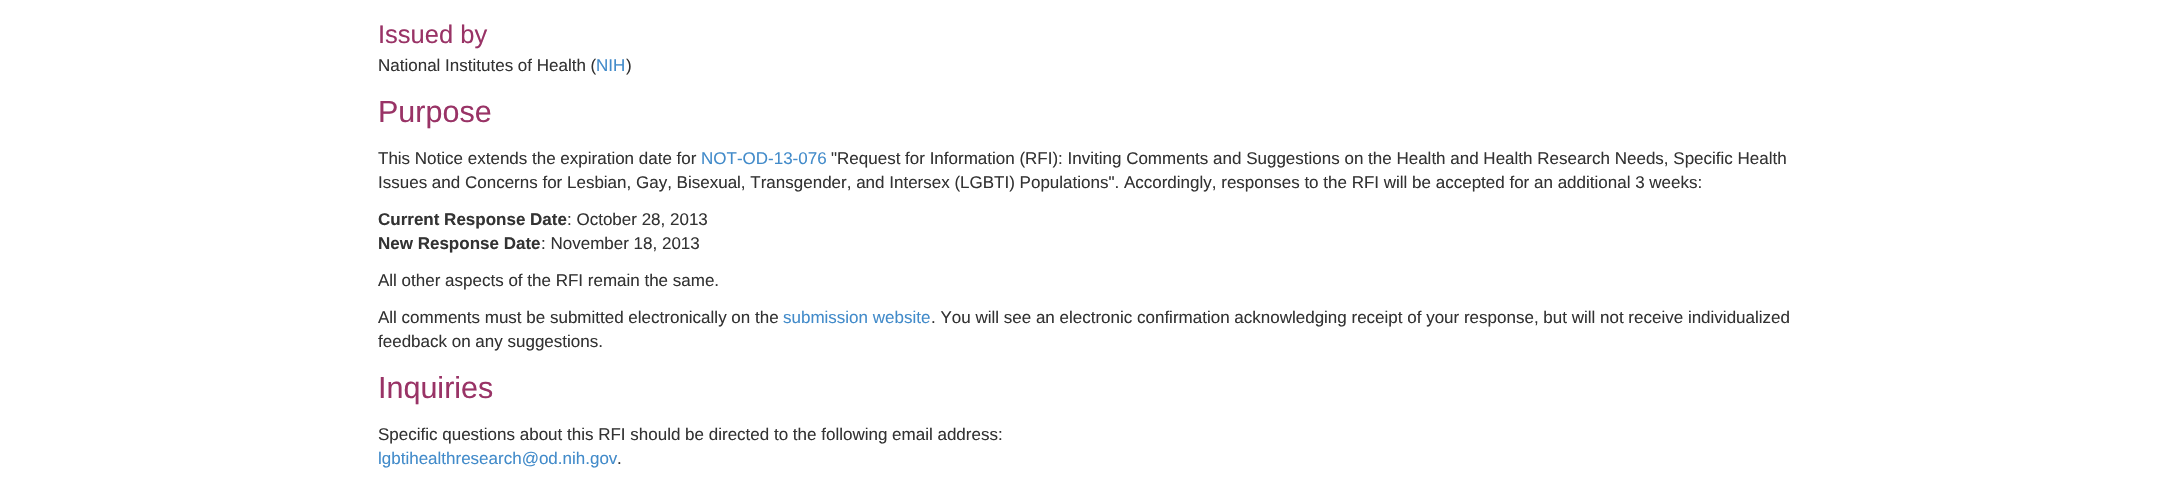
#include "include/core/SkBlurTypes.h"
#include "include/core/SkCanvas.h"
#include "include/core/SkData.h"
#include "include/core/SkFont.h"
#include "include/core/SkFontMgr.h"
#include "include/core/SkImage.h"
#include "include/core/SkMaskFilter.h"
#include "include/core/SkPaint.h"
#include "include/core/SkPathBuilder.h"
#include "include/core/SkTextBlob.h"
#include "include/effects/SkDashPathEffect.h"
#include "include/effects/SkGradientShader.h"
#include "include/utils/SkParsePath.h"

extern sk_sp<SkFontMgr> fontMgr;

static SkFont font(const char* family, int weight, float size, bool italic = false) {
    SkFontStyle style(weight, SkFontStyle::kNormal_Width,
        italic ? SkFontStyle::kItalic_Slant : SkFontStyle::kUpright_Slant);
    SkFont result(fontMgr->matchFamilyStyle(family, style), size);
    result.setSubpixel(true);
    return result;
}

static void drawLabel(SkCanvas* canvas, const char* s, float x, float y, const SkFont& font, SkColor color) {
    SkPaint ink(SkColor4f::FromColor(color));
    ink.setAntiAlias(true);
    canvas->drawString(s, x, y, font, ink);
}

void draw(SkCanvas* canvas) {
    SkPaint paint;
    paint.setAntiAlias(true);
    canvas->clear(0xFFFFFFFF);
    SkFont font1 = font("Liberation Sans", 400, 25.5f);
    drawLabel(canvas, "Issued by", 378, 43, font1, 0xFF993366);
    SkFont font2 = font("Liberation Sans", 400, 17);
    drawLabel(canvas, "National Institutes of Health (", 378, 71, font2, 0xFF333333);
    drawLabel(canvas, "NIH", 596, 71, font2, 0xFF428BCA);
    drawLabel(canvas, ")", 626, 71, font2, 0xFF333333);
    SkFont font3 = font("Liberation Sans", 400, 30.5f);
    drawLabel(canvas, "Purpose", 378, 122, font3, 0xFF993366);
    drawLabel(canvas, "This Notice extends the expiration date for", 378, 164, font2, 0xFF333333);
    drawLabel(canvas, "NOT-OD-13-076", 701, 164, font2, 0xFF428BCA);
    drawLabel(canvas, "\"Request for Information (RFI): Inviting Comments and Suggestions on the Health and Health Research Needs, Specific Health", 831, 164, font2, 0xFF333333);
    drawLabel(canvas, "Issues and Concerns for Lesbian, Gay, Bisexual, Transgender, and Intersex (LGBTI) Populations\". Accordingly, responses to the RFI will be accepted for an additional 3 weeks:", 378, 188, font2, 0xFF333333);
    SkFont font4 = font("Liberation Sans", 700, 17);
    drawLabel(canvas, "Current Response Date", 378, 225, font4, 0xFF333333);
    drawLabel(canvas, ": October 28, 2013", 567, 225, font2, 0xFF333333);
    drawLabel(canvas, "New Response Date", 378, 249, font4, 0xFF333333);
    drawLabel(canvas, ": November 18, 2013", 541, 249, font2, 0xFF333333);
    drawLabel(canvas, "All other aspects of the RFI remain the same.", 378, 286, font2, 0xFF333333);
    drawLabel(canvas, "All comments must be submitted electronically on the", 378, 323, font2, 0xFF333333);
    drawLabel(canvas, "submission website", 783, 323, font2, 0xFF428BCA);
    drawLabel(canvas, ". You will see an electronic confirmation acknowledging receipt of your response, but will not receive individualized", 931, 323, font2, 0xFF333333);
    drawLabel(canvas, "feedback on any suggestions.", 378, 347, font2, 0xFF333333);
    drawLabel(canvas, "Inquiries", 378, 398, font3, 0xFF993366);
    drawLabel(canvas, "Specific questions about this RFI should be directed to the following email address:", 378, 440, font2, 0xFF333333);
    drawLabel(canvas, "lgbtihealthresearch@od.nih.gov", 378, 464, font2, 0xFF428BCA);
    drawLabel(canvas, ".", 617, 464, font2, 0xFF333333);
}
